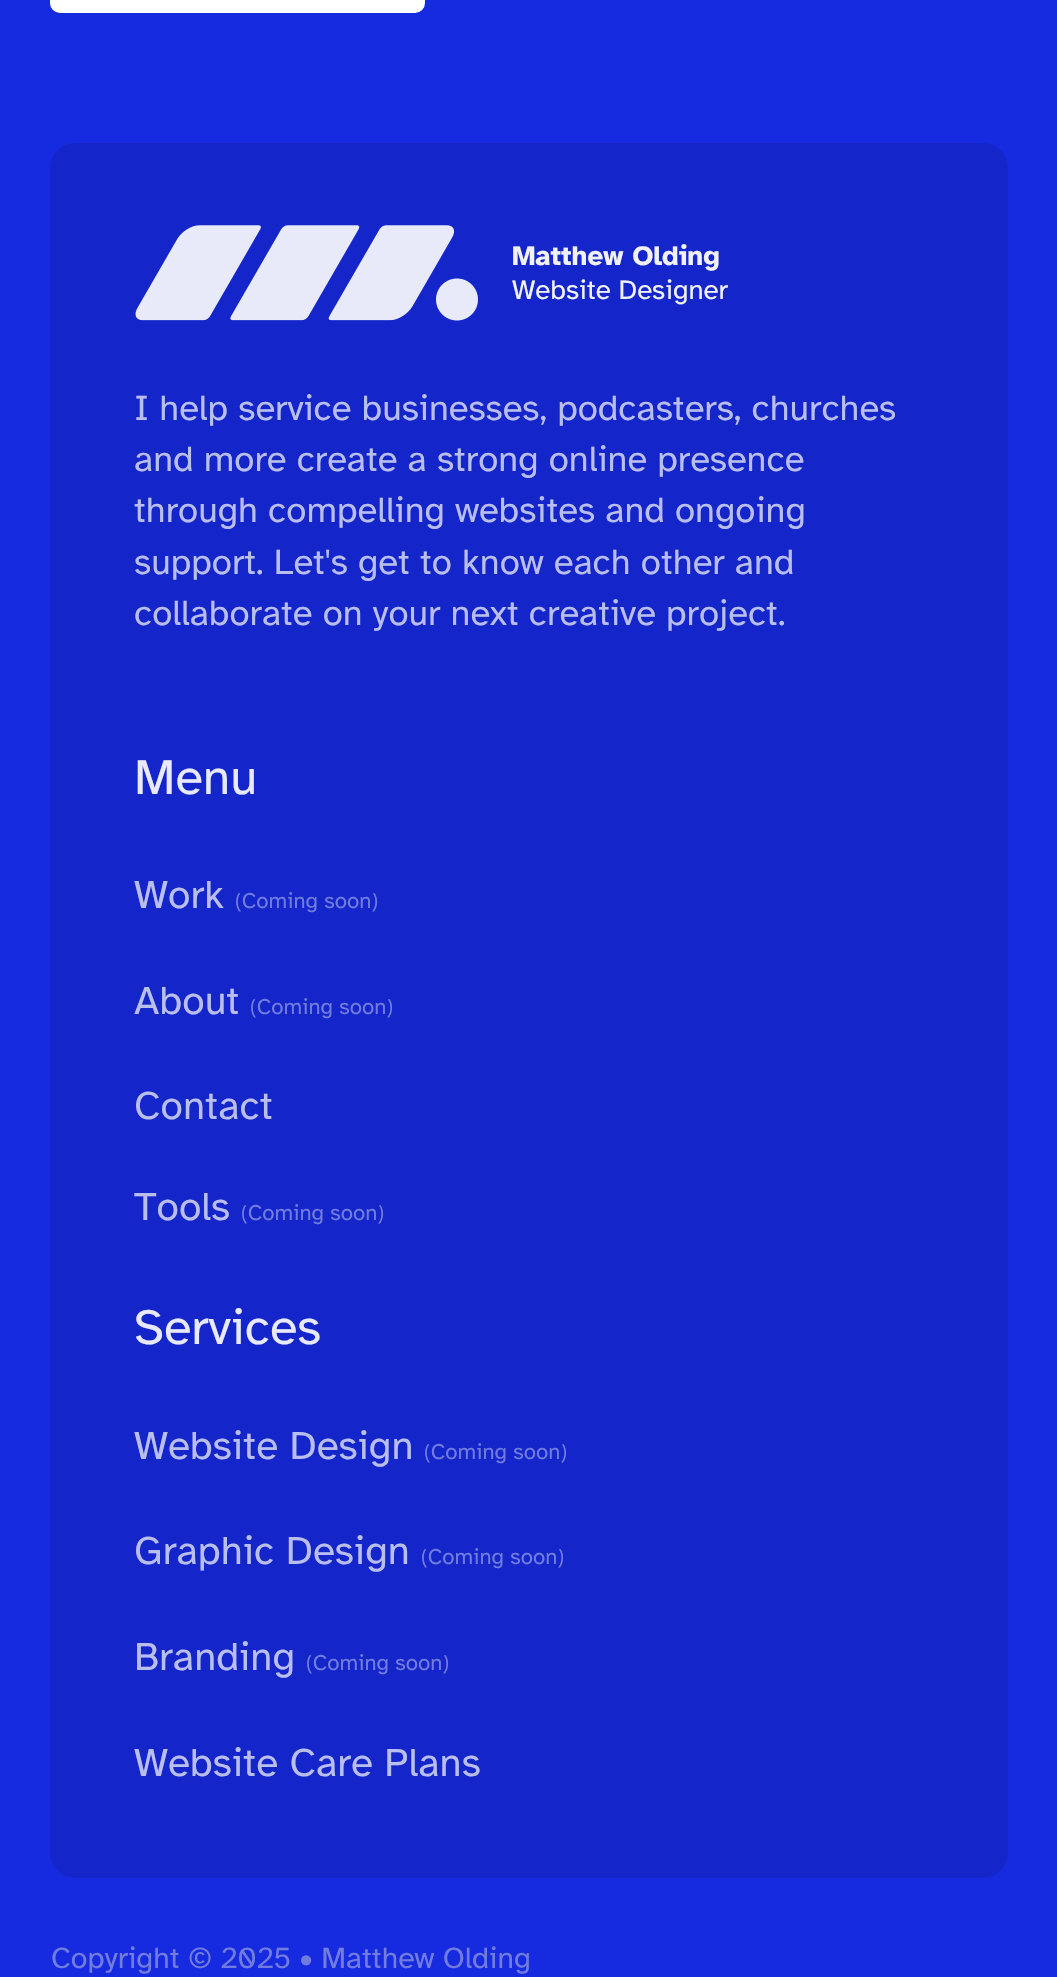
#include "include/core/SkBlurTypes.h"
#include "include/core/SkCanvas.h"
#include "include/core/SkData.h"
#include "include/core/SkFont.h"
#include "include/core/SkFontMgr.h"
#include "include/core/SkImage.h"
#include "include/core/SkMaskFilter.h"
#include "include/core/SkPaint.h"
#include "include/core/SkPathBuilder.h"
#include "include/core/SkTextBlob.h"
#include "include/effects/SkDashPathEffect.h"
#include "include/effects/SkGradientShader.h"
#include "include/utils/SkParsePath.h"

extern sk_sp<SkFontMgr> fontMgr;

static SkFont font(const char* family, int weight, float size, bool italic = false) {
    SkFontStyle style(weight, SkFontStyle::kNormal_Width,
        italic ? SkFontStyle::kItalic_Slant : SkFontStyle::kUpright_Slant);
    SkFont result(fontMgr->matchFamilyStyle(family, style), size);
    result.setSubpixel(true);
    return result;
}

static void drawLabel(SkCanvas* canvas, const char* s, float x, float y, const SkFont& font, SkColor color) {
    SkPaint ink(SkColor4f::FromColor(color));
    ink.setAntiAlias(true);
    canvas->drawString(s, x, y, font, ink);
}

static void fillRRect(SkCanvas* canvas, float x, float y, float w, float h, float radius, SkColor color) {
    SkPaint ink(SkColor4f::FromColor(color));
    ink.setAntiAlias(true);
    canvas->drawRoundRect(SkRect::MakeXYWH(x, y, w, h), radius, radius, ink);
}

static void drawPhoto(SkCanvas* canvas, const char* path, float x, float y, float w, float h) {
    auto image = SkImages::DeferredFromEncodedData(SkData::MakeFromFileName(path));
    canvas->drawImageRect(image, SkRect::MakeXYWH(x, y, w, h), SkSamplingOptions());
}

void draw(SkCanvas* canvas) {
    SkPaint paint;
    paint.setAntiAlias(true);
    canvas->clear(0xFF162ADF);
    paint.setColor(0xFFFFFFFF);
    canvas->drawRoundRect(SkRect::MakeXYWH(52.5f, -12.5f, 370, 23), 7.5f, 7.5f, paint);
    paint.setStroke(true);
    paint.setStrokeWidth(5);
    canvas->drawRoundRect(SkRect::MakeXYWH(52.5f, -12.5f, 370, 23), 7.5f, 7.5f, paint);
    fillRRect(canvas, 50, 143, 958, 1735, 25, 0xFF1425CA);
    drawPhoto(canvas, "assets/img1.png", 135, 225, 343, 96);
    SkFont font1 = font("Atkinson Hyperlegible", 700, 27.75f);
    drawLabel(canvas, "Matthew Olding", 512, 265, font1, 0xFFF1F1F4);
    SkFont font2 = font("Atkinson Hyperlegible", 400, 27.75f);
    drawLabel(canvas, "Website Designer", 512, 299, font2, 0xFFF1F1F4);
    SkFont font3 = font("Atkinson Hyperlegible", 400, 36.4f);
    drawLabel(canvas, "I help service businesses, podcasters, churches", 134, 420, font3, 0xFFB9BEEF);
    drawLabel(canvas, "and more create a strong online presence", 134, 471, font3, 0xFFB9BEEF);
    drawLabel(canvas, "through compelling websites and ongoing", 134, 522, font3, 0xFFB9BEEF);
    drawLabel(canvas, "support. Let's get to know each other and", 134, 574, font3, 0xFFB9BEEF);
    drawLabel(canvas, "collaborate on your next creative project.", 134, 625, font3, 0xFFB9BEEF);
    SkFont font4 = font("Atkinson Hyperlegible", 400, 50.5f);
    drawLabel(canvas, "Menu", 134, 794, font4, 0xFFE8E9FA);
    SkFont font5 = font("Atkinson Hyperlegible", 400, 40.5f);
    drawLabel(canvas, "Work", 134, 908, font5, 0xFFB9BEEF);
    SkFont font6 = font("Atkinson Hyperlegible", 400, 22.25f);
    drawLabel(canvas, "(Coming soon)", 235, 908, font6, 0xFF727CDF);
    drawLabel(canvas, "About", 134, 1014, font5, 0xFFB9BEEF);
    drawLabel(canvas, "(Coming soon)", 250, 1014, font6, 0xFF727CDF);
    drawLabel(canvas, "Contact", 134, 1119, font5, 0xFFB9BEEF);
    drawLabel(canvas, "Tools", 134, 1220, font5, 0xFFB9BEEF);
    drawLabel(canvas, "(Coming soon)", 241, 1220, font6, 0xFF727CDF);
    drawLabel(canvas, "Services", 134, 1344, font4, 0xFFE8E9FA);
    drawLabel(canvas, "Website Design", 134, 1459, font5, 0xFFB9BEEF);
    drawLabel(canvas, "(Coming soon)", 424, 1459, font6, 0xFF727CDF);
    drawLabel(canvas, "Graphic Design", 134, 1564, font5, 0xFFB9BEEF);
    drawLabel(canvas, "(Coming soon)", 421, 1564, font6, 0xFF727CDF);
    drawLabel(canvas, "Branding", 134, 1670, font5, 0xFFB9BEEF);
    drawLabel(canvas, "(Coming soon)", 306, 1670, font6, 0xFF727CDF);
    drawLabel(canvas, "Website Care Plans", 134, 1776, font5, 0xFFB9BEEF);
    SkFont font7 = font("Atkinson Hyperlegible", 400, 30.25f);
    drawLabel(canvas, "Copyright © 2025 • Matthew Olding", 51, 1968, font7, 0xFF727CDF);
}
